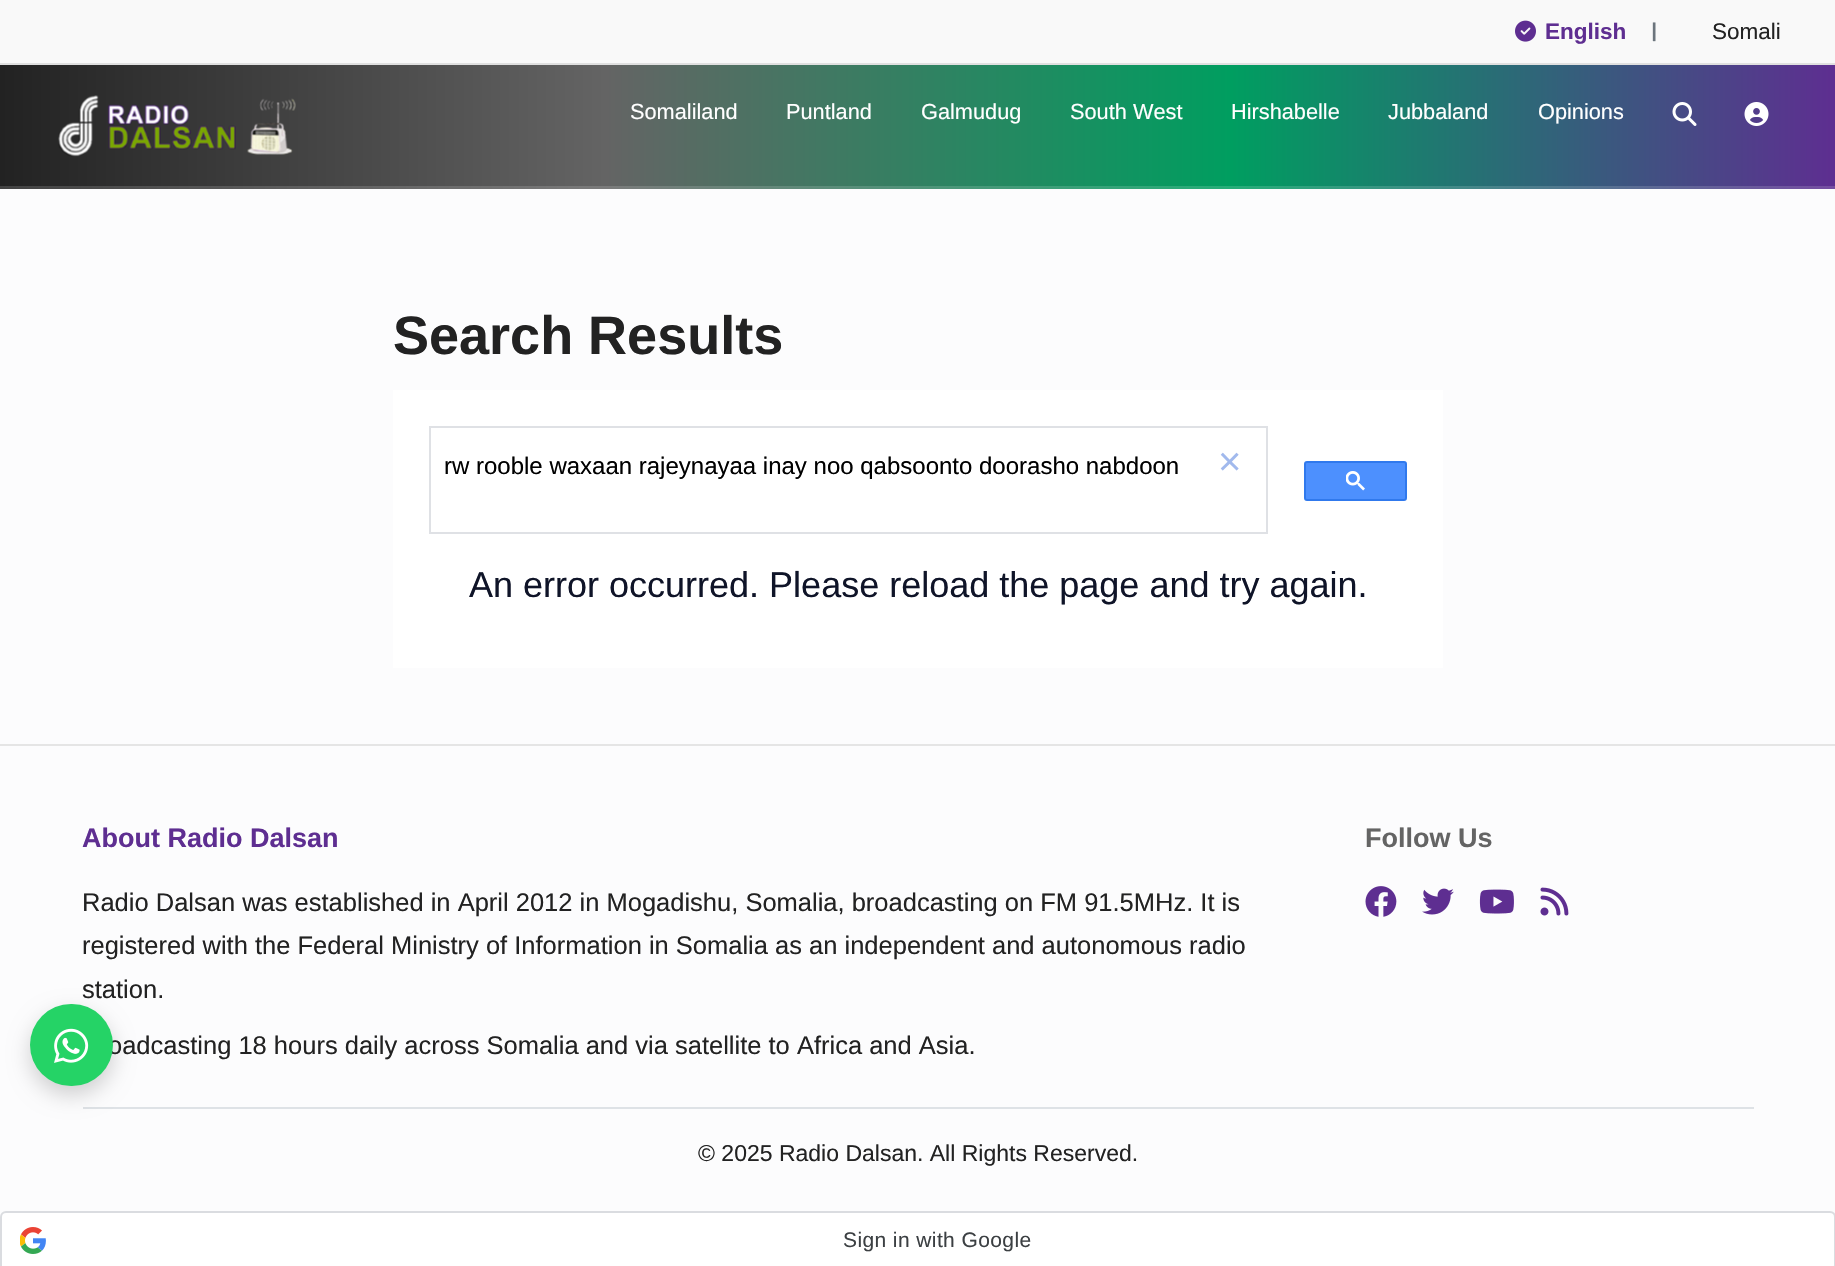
#include "include/core/SkBlurTypes.h"
#include "include/core/SkCanvas.h"
#include "include/core/SkData.h"
#include "include/core/SkFont.h"
#include "include/core/SkFontMgr.h"
#include "include/core/SkImage.h"
#include "include/core/SkMaskFilter.h"
#include "include/core/SkPaint.h"
#include "include/core/SkPathBuilder.h"
#include "include/core/SkTextBlob.h"
#include "include/effects/SkDashPathEffect.h"
#include "include/effects/SkGradientShader.h"
#include "include/utils/SkParsePath.h"

extern sk_sp<SkFontMgr> fontMgr;

static SkFont font(const char* family, int weight, float size, bool italic = false) {
    SkFontStyle style(weight, SkFontStyle::kNormal_Width,
        italic ? SkFontStyle::kItalic_Slant : SkFontStyle::kUpright_Slant);
    SkFont result(fontMgr->matchFamilyStyle(family, style), size);
    result.setSubpixel(true);
    return result;
}

static void drawLabel(SkCanvas* canvas, const char* s, float x, float y, const SkFont& font, SkColor color) {
    SkPaint ink(SkColor4f::FromColor(color));
    ink.setAntiAlias(true);
    canvas->drawString(s, x, y, font, ink);
}

static void drawTracked(SkCanvas* canvas, const char* s, float x, float y, const SkFont& font, const SkPaint& ink, float letter, float word) {
    std::vector<SkGlyphID> glyphs(font.countText(s, strlen(s), SkTextEncoding::kUTF8));
    std::vector<float> xs(glyphs.size());
    font.textToGlyphs(s, strlen(s), SkTextEncoding::kUTF8, glyphs);
    font.getXPos(glyphs, xs, x);
    float extra = 0;
    for (size_t i = 0; i < glyphs.size(); i++) {
        xs[i] += extra;
        extra += letter + word * (glyphs[i] == font.unicharToGlyph(' '));
    }
    canvas->drawTextBlob(SkTextBlob::MakeFromPosHGlyphs(glyphs, xs, y, font), 0, 0, ink);
}

static void fillRect(SkCanvas* canvas, float x, float y, float w, float h, SkColor color) {
    SkPaint ink(SkColor4f::FromColor(color));
    ink.setAntiAlias(true);
    canvas->drawRect(SkRect::MakeXYWH(x, y, w, h), ink);
}

static void fillRRect(SkCanvas* canvas, float x, float y, float w, float h, float radius, SkColor color) {
    SkPaint ink(SkColor4f::FromColor(color));
    ink.setAntiAlias(true);
    canvas->drawRoundRect(SkRect::MakeXYWH(x, y, w, h), radius, radius, ink);
}

static void drawPhoto(SkCanvas* canvas, const char* path, float x, float y, float w, float h) {
    auto image = SkImages::DeferredFromEncodedData(SkData::MakeFromFileName(path));
    canvas->drawImageRect(image, SkRect::MakeXYWH(x, y, w, h), SkSamplingOptions());
}

void draw(SkCanvas* canvas) {
    SkPaint paint;
    paint.setAntiAlias(true);
    canvas->clear(0xFFFCFCFD);
    fillRect(canvas, 0, 0, 1835, 63, 0xFFF9F9F9);
    fillRect(canvas, 0, 63, 1835, 2, 0xFFE0E0E0);
    drawPhoto(canvas, "assets/img1.png", 1515, 20, 21, 22);
    SkFont font1 = font("Liberation Sans", 700, 22.5f);
    drawLabel(canvas, "English", 1545, 39, font1, 0xFF5E2E91);
    SkFont font2 = font("Liberation Sans", 700, 20, true);
    drawLabel(canvas, "|", 1651, 37, font2, 0xFF6C757D);
    SkFont font3 = font("Liberation Sans", 400, 22.5f);
    drawLabel(canvas, "Somali", 1712, 39, font3, 0xFF222222);
    {
        const SkColor colors[] = {0xFF222222, 0xFF646464, 0xFF009E60, 0xFF5E2E91};
        const float stops[] = {0, 0.33f, 0.67f, 1};
        const SkPoint ends[] = {{0, 125}, {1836, 125}};
        paint.setShader(SkGradientShader::MakeLinear(ends, colors, stops, 4, SkTileMode::kClamp));
        paint.setAlpha(255);
    }
    canvas->drawRect(SkRect::MakeXYWH(0, 65, 1835, 121), paint);
    {
        const SkColor colors[] = {0xFF434343, 0xFF7B7B7B, 0xFF26AD78, 0xFF764DA2};
        const float stops[] = {0, 0.33f, 0.67f, 1};
        const SkPoint ends[] = {{0, 125}, {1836, 125}};
        paint.setShader(SkGradientShader::MakeLinear(ends, colors, stops, 4, SkTileMode::kClamp));
        paint.setAlpha(255);
    }
    canvas->drawRect(SkRect::MakeXYWH(0, 186, 1835, 3), paint);
    drawPhoto(canvas, "assets/img2.png", 58, 95, 238, 62);
    SkFont font4 = font("Liberation Sans", 400, 21.75f);
    drawLabel(canvas, "Somaliland", 630, 119, font4, 0xFFFFFFFF);
    drawLabel(canvas, "Puntland", 786, 119, font4, 0xFFFFFFFF);
    drawLabel(canvas, "Galmudug", 921, 119, font4, 0xFFFFFFFF);
    drawLabel(canvas, "South West", 1070, 119, font4, 0xFFFFFFFF);
    drawLabel(canvas, "Hirshabelle", 1231, 119, font4, 0xFFFFFFFF);
    drawLabel(canvas, "Jubbaland", 1388, 119, font4, 0xFFFFFFFF);
    drawLabel(canvas, "Opinions", 1538, 119, font4, 0xFFFFFFFF);
    drawPhoto(canvas, "assets/img3.png", 1672, 102, 25, 24);
    drawPhoto(canvas, "assets/img4.png", 1744, 102, 25, 24);
    fillRect(canvas, 83, 1107, 1671, 2, 0xFFDEE2E6);
    paint.setShader(nullptr);
    paint.setColor(0x2E000000);
    paint.setMaskFilter(SkMaskFilter::MakeBlur(kNormal_SkBlurStyle, 10.5f));
    canvas->drawRoundRect(SkRect::MakeXYWH(30, 1013, 83, 82), 41, 41, paint);
    paint.setMaskFilter(nullptr);
    SkFont font5 = font("Liberation Sans", 400, 25.5f);
    drawLabel(canvas, "oadcasting 18 hours daily across Somalia and via satellite to Africa and Asia.", 108, 1054, font5, 0xFF222222);
    fillRRect(canvas, 30, 1004, 83, 82, 41, 0xFF25D366);
    drawPhoto(canvas, "assets/img5.png", 54, 1028, 35, 35);
    SkFont font6 = font("Liberation Sans", 700, 54);
    drawLabel(canvas, "Search Results", 393, 354, font6, 0xFF222222);
    fillRect(canvas, 393, 390, 1050, 278, 0xFFFFFFFF);
    paint.setStroke(true);
    paint.setStrokeWidth(2);
    paint.setColor(0xFFDFE1E5);
    canvas->drawRect(SkRect::MakeXYWH(430, 427, 837, 106), paint);
    SkFont font7 = font("Liberation Sans", 400, 24);
    drawLabel(canvas, "rw rooble waxaan rajeynayaa inay noo qabsoonto doorasho nabdoon", 444, 474, font7, 0xFF000000);
    SkFont font8 = font("Liberation Sans", 400, 40);
    drawLabel(canvas, "×", 1218, 475, font8, 0xFFA1B9ED);
    paint.setStroke(false);
    paint.setColor(0xFF4D90FE);
    canvas->drawRoundRect(SkRect::MakeXYWH(1305, 462, 101, 38), 2, 2, paint);
    paint.setStroke(true);
    paint.setColor(0xFF3079ED);
    canvas->drawRoundRect(SkRect::MakeXYWH(1305, 462, 101, 38), 2, 2, paint);
    drawPhoto(canvas, "assets/img6.png", 1346, 471, 19, 20);
    SkFont font9 = font("Liberation Sans", 400, 36);
    drawLabel(canvas, "An error occurred. Please reload the page and try again.", 469, 597, font9, 0xFF0F1428);
    fillRect(canvas, 0, 744, 1835, 2, 0xFFE5E5E5);
    SkFont font10 = font("Liberation Sans", 700, 27);
    drawLabel(canvas, "About Radio Dalsan", 82, 847, font10, 0xFF5E2E91);
    drawLabel(canvas, "Radio Dalsan was established in April 2012 in Mogadishu, Somalia, broadcasting on FM 91.5MHz. It is", 82, 911, font5, 0xFF222222);
    drawLabel(canvas, "registered with the Federal Ministry of Information in Somalia as an independent and autonomous radio", 82, 954, font5, 0xFF222222);
    drawLabel(canvas, "station.", 82, 998, font5, 0xFF222222);
    drawLabel(canvas, "Follow Us", 1365, 847, font10, 0xFF646464);
    drawPhoto(canvas, "assets/img7.png", 1365, 886, 32, 31);
    drawPhoto(canvas, "assets/img8.png", 1422, 888, 32, 27);
    drawPhoto(canvas, "assets/img9.png", 1479, 889, 35, 25);
    drawPhoto(canvas, "assets/img10.png", 1540, 887, 29, 29);
    SkFont font11 = font("Liberation Sans", 400, 23);
    drawLabel(canvas, "© 2025 Radio Dalsan. All Rights Reserved.", 698, 1161, font11, 0xFF222222);
    paint.setStroke(false);
    paint.setColor(0xFFFFFFFF);
    canvas->drawRoundRect(SkRect::MakeXYWH(1, 1212, 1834, 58), 5, 5, paint);
    paint.setStroke(true);
    paint.setColor(0xFFDADCE0);
    canvas->drawRoundRect(SkRect::MakeXYWH(1, 1212, 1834, 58), 5, 5, paint);
    drawPhoto(canvas, "assets/img11.png", 20, 1227, 26, 27);
    SkFont font12 = font("Liberation Sans", 400, 21);
    paint.setStroke(false);
    paint.setColor(0xFF3C4043);
    drawTracked(canvas, "Sign in with Google", 843, 1247, font12, paint, 0.4f, 0);
}
